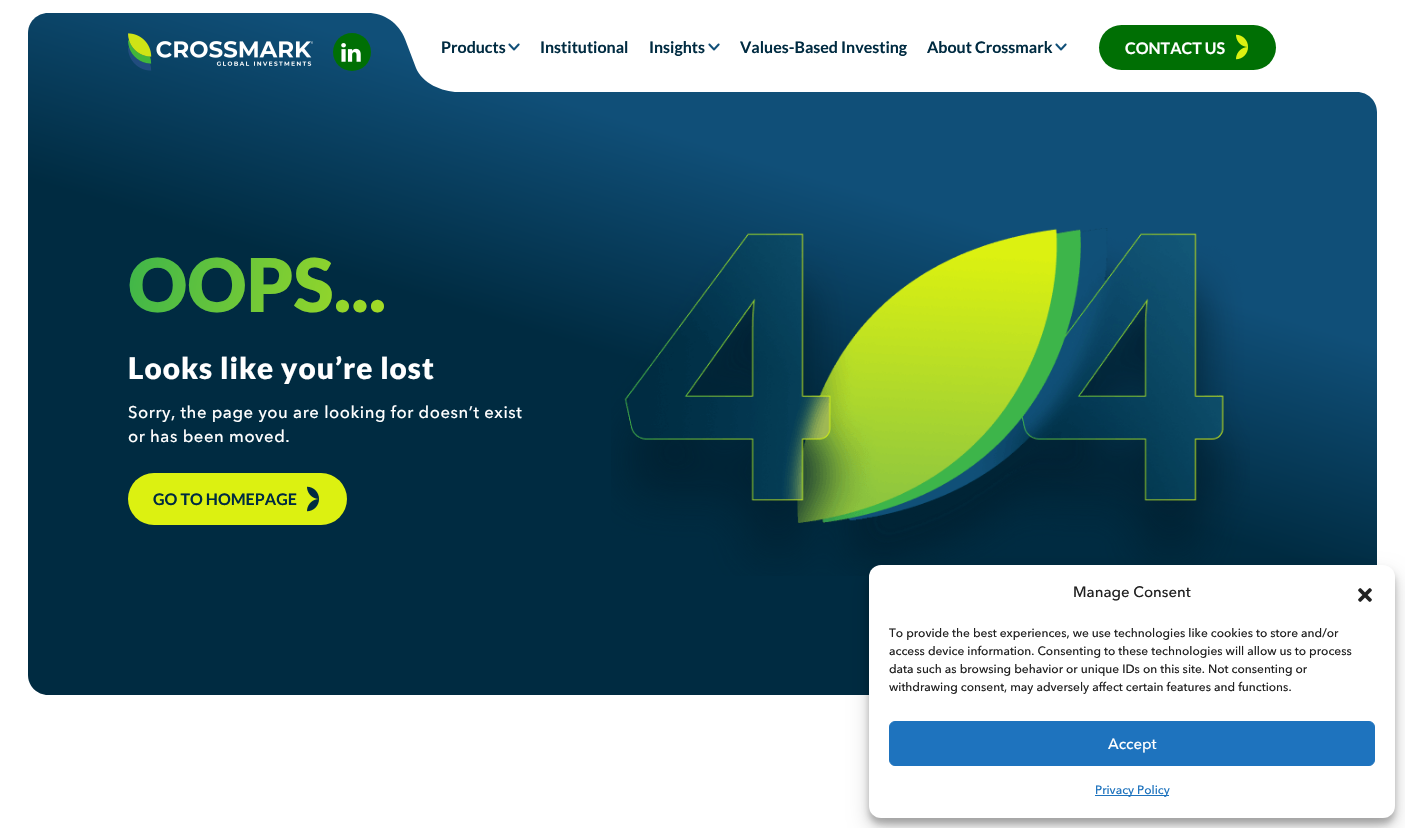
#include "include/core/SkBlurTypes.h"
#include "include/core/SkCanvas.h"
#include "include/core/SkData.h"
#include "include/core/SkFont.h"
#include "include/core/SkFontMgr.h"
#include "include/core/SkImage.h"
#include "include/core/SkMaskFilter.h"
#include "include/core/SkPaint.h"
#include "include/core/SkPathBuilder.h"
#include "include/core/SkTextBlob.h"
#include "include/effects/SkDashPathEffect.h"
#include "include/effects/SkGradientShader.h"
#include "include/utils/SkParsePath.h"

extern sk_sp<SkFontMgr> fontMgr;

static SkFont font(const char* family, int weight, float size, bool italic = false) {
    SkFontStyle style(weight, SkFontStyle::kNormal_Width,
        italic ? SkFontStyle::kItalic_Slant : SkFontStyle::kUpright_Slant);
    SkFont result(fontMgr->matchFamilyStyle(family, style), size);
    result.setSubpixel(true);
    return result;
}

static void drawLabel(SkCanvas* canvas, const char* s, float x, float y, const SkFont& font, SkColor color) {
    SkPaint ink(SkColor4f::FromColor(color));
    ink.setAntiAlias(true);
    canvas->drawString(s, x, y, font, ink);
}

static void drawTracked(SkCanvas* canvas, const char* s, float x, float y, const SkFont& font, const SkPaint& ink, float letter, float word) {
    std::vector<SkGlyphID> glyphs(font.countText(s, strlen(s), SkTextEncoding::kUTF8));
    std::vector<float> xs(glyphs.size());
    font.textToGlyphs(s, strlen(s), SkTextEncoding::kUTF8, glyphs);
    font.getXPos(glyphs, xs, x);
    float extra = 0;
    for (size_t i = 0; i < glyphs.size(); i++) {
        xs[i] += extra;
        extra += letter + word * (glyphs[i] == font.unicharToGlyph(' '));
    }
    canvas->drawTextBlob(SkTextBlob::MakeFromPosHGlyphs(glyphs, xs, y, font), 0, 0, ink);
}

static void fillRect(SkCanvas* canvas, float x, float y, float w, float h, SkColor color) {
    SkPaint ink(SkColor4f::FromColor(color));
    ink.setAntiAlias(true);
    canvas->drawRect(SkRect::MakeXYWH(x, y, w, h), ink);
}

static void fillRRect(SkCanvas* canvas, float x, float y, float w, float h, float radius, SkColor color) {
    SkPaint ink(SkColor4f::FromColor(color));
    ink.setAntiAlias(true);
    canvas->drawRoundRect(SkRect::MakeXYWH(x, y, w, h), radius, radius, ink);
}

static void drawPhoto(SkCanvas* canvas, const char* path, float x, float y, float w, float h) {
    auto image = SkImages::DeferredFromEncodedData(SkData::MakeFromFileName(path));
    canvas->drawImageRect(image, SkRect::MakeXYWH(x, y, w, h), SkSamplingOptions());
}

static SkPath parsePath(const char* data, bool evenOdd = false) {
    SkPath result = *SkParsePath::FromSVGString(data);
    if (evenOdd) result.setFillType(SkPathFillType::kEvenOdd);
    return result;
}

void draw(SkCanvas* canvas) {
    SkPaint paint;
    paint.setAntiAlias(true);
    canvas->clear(0xFFFFFFFF);
    {
        const SkColor colors[] = {0xFF002B41, 0xFF104F78};
        const float stops[] = {0.64f, 1};
        const SkPoint ends[] = {{483, 741}, {666, 132}};
        paint.setShader(SkGradientShader::MakeLinear(ends, colors, stops, 2, SkTileMode::kClamp));
        paint.setAlpha(255);
    }
    canvas->drawPath(parsePath("M48 13C37 13 28 22 28 33V675C28 686 37 695 48 695H1357C1368 695 1377 686 1377 675V33C1377 22 1368 13 1357 13Z"), paint);
    drawPhoto(canvas, "assets/img1.png", 128, 33, 185, 38);
    paint.setShader(nullptr);
    paint.setColor(0xFFFFFFFF);
    canvas->drawPath(parsePath("M354 13H368C384 13 399 23 405 39L416 68C422 83 442 92 458 92V13", true), paint);
    paint.setColor(0xFF006F04);
    canvas->drawCircle(352, 52, 19, paint);
    drawPhoto(canvas, "assets/img2.png", 341, 43, 20, 19);
    fillRect(canvas, 456, 13, 921, 79, 0xFFFFFFFF);
    SkFont font1 = font("Lato", 700, 16);
    drawLabel(canvas, "Products", 441, 53, font1, 0xFF002B41);
    drawPhoto(canvas, "assets/img3.png", 508, 43, 12, 8);
    drawLabel(canvas, "Institutional", 540, 53, font1, 0xFF002B41);
    drawLabel(canvas, "Insights", 649, 53, font1, 0xFF002B41);
    drawPhoto(canvas, "assets/img3.png", 708, 43, 12, 8);
    drawLabel(canvas, "Values-Based Investing", 740, 53, font1, 0xFF002B41);
    drawLabel(canvas, "About Crossmark", 927, 53, font1, 0xFF002B41);
    drawPhoto(canvas, "assets/img3.png", 1055, 43, 12, 8);
    fillRRect(canvas, 1099, 25, 177, 45, 22.5f, 0xFF006F04);
    drawLabel(canvas, "CONTACT US", 1125, 54, font1, 0xFFFFFFFF);
    drawPhoto(canvas, "assets/img4.png", 1236, 34, 12, 26);
    paint.setColor(0xFFFFFFFF);
    canvas->drawPath(parsePath("M1377 92H1357C1368 92 1377 101 1377 112", true), paint);
    SkFont font2 = font("Lato", 900, 74);
    {
        const SkColor colors[] = {0xFF3DB54A, 0xFFDCF111};
        const float stops[] = {0, 1};
        const SkPoint ends[] = {{124, 245}, {528, 324}};
        paint.setShader(SkGradientShader::MakeLinear(ends, colors, stops, 2, SkTileMode::kClamp));
        paint.setAlpha(255);
    }
    canvas->drawString("OOPS...", 128, 312, font2, paint);
    SkFont font3 = font("Lato", 900, 29.75f);
    paint.setShader(nullptr);
    paint.setColor(0xFFFFFFFF);
    drawTracked(canvas, "Looks like you’re lost", 128, 379, font3, paint, 1, 0);
    SkFont font4 = font("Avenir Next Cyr", 500, 16.7f);
    drawTracked(canvas, "Sorry, the page you are looking for doesn’t exist", 128, 418, font4, paint, 0.55f, 0);
    drawTracked(canvas, "or has been moved.", 128, 442, font4, paint, 0.55f, 0);
    fillRRect(canvas, 128, 473, 219, 52, 26, 0xFFDCF111);
    drawLabel(canvas, "GO TO HOMEPAGE", 153, 505, font1, 0xFF002B41);
    drawPhoto(canvas, "assets/img5.png", 307, 486, 12, 26);
    drawPhoto(canvas, "assets/img6.png", 611, 228, 639, 348);
    paint.setColor(0x3B000000);
    paint.setMaskFilter(SkMaskFilter::MakeBlur(kNormal_SkBlurStyle, 3));
    canvas->drawRoundRect(SkRect::MakeXYWH(869, 571, 526, 253), 12, 12, paint);
    paint.setMaskFilter(nullptr);
    paint.setColor(0x30000000);
    paint.setMaskFilter(SkMaskFilter::MakeBlur(kNormal_SkBlurStyle, 10));
    canvas->drawRoundRect(SkRect::MakeXYWH(869, 575, 526, 253), 12, 12, paint);
    paint.setMaskFilter(nullptr);
    fillRRect(canvas, 869, 565, 526, 253, 12, 0xFFFFFFFF);
    SkFont font5 = font("Avenir Next Cyr", 500, 15);
    drawLabel(canvas, "Manage Consent", 1073, 597, font5, 0xFF222222);
    drawPhoto(canvas, "assets/img7.png", 1358, 588, 14, 14);
    SkFont font6 = font("Avenir Next Cyr", 500, 12);
    drawLabel(canvas, "To provide the best experiences, we use technologies like cookies to store and/or", 889, 637, font6, 0xFF222222);
    drawLabel(canvas, "access device information. Consenting to these technologies will allow us to process", 889, 655, font6, 0xFF222222);
    drawLabel(canvas, "data such as browsing behavior or unique IDs on this site. Not consenting or", 889, 673, font6, 0xFF222222);
    drawLabel(canvas, "withdrawing consent, may adversely affect certain features and functions.", 889, 691, font6, 0xFF222222);
    paint.setColor(0xFF1E73BE);
    canvas->drawRoundRect(SkRect::MakeXYWH(889.5f, 721.5f, 485, 44), 5.5f, 5.5f, paint);
    paint.setStroke(true);
    paint.setStrokeWidth(1);
    canvas->drawRoundRect(SkRect::MakeXYWH(889.5f, 721.5f, 485, 44), 5.5f, 5.5f, paint);
    drawLabel(canvas, "Accept", 1108, 749, font5, 0xFFFFFFFF);
    fillRect(canvas, 1095, 795, 74, 1, 0xFF1E73BE);
    drawLabel(canvas, "Privacy Policy", 1095, 794, font6, 0xFF1E73BE);
}
